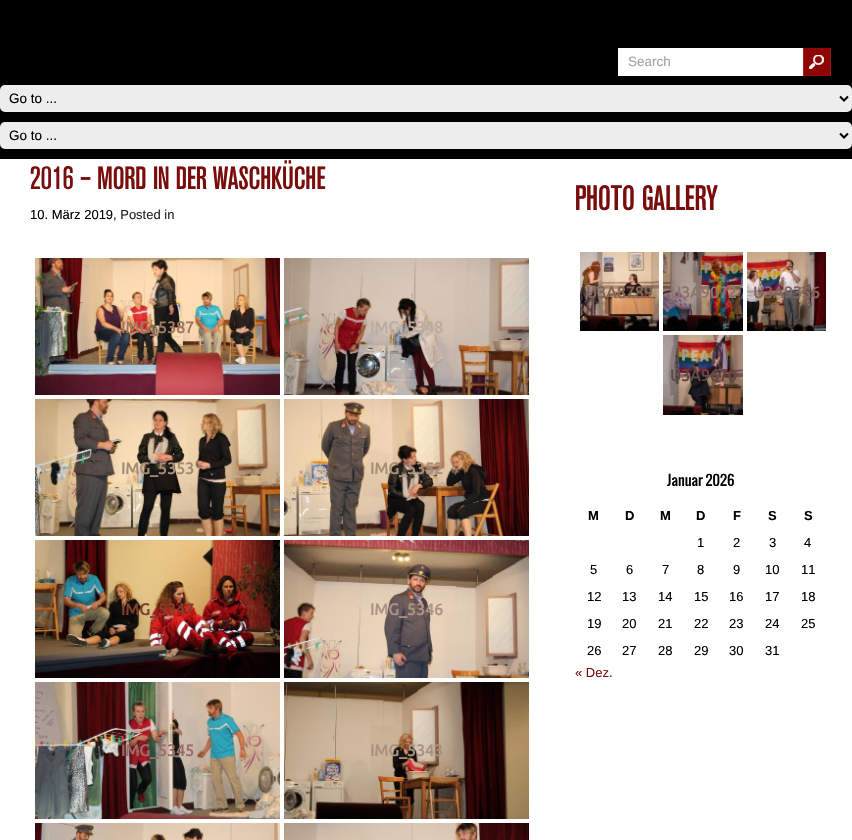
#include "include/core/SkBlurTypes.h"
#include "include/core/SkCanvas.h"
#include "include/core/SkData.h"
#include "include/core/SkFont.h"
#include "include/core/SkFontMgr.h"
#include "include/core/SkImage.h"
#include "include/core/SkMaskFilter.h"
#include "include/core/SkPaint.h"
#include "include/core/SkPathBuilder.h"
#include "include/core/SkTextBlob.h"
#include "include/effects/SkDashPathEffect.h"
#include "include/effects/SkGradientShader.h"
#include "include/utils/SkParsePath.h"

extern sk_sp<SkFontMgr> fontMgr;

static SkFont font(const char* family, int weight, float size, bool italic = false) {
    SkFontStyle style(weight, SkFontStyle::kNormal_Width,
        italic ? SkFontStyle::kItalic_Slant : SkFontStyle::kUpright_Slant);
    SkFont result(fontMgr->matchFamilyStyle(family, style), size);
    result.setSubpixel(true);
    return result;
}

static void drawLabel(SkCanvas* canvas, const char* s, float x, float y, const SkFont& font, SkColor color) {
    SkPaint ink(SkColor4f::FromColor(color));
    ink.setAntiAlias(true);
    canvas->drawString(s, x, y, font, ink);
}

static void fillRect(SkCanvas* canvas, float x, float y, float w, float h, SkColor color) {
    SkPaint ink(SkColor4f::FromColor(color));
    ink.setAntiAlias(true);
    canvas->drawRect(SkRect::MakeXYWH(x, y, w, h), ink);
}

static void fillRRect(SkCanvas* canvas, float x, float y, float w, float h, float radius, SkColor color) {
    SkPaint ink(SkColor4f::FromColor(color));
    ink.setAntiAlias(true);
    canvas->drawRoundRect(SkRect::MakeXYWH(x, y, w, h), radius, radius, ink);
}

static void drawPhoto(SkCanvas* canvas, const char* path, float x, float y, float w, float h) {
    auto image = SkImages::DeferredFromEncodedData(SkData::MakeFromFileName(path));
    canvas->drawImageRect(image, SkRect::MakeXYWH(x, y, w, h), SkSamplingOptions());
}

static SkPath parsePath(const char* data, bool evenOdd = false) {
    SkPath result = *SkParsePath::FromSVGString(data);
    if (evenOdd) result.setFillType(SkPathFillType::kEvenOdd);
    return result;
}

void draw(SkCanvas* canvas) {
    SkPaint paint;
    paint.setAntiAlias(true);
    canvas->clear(0xFF000000);
    fillRect(canvas, 618, 48, 213, 28, 0xFFFFFFFF);
    SkFont font1 = font("Liberation Sans", 400, 13.5f);
    drawLabel(canvas, "Search", 628, 66, font1, 0xFFA3A3A3);
    drawPhoto(canvas, "assets/img1.png", 803, 48, 28, 28);
    fillRRect(canvas, 0, 85, 852, 27, 5, 0xFFEDEDED);
    paint.setStroke(true);
    paint.setStrokeWidth(2);
    paint.setColor(0xFF000000);
    canvas->drawPath(parsePath("M840 96.5L844 100.5L848 96.5"), paint);
    drawLabel(canvas, "Go to ...", 9, 103, font1, 0xFF000000);
    fillRRect(canvas, 0, 122, 852, 27, 5, 0xFFEDEDED);
    canvas->drawPath(parsePath("M840 133.5L844 137.5L848 133.5"), paint);
    drawLabel(canvas, "Go to ...", 9, 140, font1, 0xFF000000);
    fillRect(canvas, 0, 159, 852, 681, 0xFFFFFFFF);
    SkFont font2 = font("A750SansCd", 500, 32);
    drawLabel(canvas, "2016 – MORD IN DER WASCHKÜCHE", 30, 189, font2, 0xFF780D0C);
    SkFont font3 = font("Liberation Sans", 400, 13);
    drawLabel(canvas, "10. März 2019", 30, 219, font3, 0xFF000000);
    drawLabel(canvas, ", Posted in", 113, 219, font3, 0xFF252525);
    drawPhoto(canvas, "assets/img2.png", 35, 258, 245, 137);
    SkFont font4 = font("Ubuntu", 700, 16);
    drawLabel(canvas, "IMG_5387", 121, 333, font4, 0xFFA3765E);
    drawPhoto(canvas, "assets/img3.png", 284, 258, 245, 137);
    drawLabel(canvas, "IMG_5348", 370, 333, font4, 0xFFBCAC9F);
    drawPhoto(canvas, "assets/img4.png", 35, 399, 245, 137);
    drawLabel(canvas, "IMG_5353", 121, 474, font4, 0xFFA18D74);
    drawPhoto(canvas, "assets/img5.png", 284, 399, 245, 137);
    drawLabel(canvas, "IMG_5352", 370, 474, font4, 0xFFA98F78);
    drawPhoto(canvas, "assets/img6.png", 35, 540, 245, 138);
    drawLabel(canvas, "IMG_5347", 121, 615, font4, 0xFF833D2B);
    drawPhoto(canvas, "assets/img7.png", 284, 540, 245, 138);
    drawLabel(canvas, "IMG_5346", 370, 615, font4, 0xFFA99488);
    drawPhoto(canvas, "assets/img8.png", 35, 682, 245, 137);
    drawLabel(canvas, "IMG_5345", 121, 756, font4, 0xFF996D67);
    drawPhoto(canvas, "assets/img9.png", 284, 682, 245, 137);
    drawLabel(canvas, "IMG_5343", 370, 756, font4, 0xFFA6927E);
    drawPhoto(canvas, "assets/img10.png", 35, 823, 245, 17);
    drawPhoto(canvas, "assets/img11.png", 284, 823, 245, 17);
    SkFont font5 = font("A750SansCd", 500, 35);
    drawLabel(canvas, "PHOTO GALLERY", 575, 210, font5, 0xFF780D0C);
    drawPhoto(canvas, "assets/img12.png", 580, 252, 79, 79);
    drawLabel(canvas, "U3A8789", 586, 298, font4, 0xFF816555);
    drawPhoto(canvas, "assets/img13.png", 663, 252, 80, 79);
    drawLabel(canvas, "U3A9072", 670, 298, font4, 0xFF8E746C);
    drawPhoto(canvas, "assets/img14.png", 747, 252, 79, 79);
    drawLabel(canvas, "U3A9356", 753, 298, font4, 0xFF836661);
    drawPhoto(canvas, "assets/img15.png", 663, 335, 80, 80);
    drawLabel(canvas, "U3A9670", 670, 381, font4, 0xFF634845);
    SkFont font6 = font("Oswald", 400, 14);
    drawLabel(canvas, "Januar 2026", 667, 486, font6, 0xFF000000);
    SkFont font7 = font("Liberation Sans", 700, 13);
    drawLabel(canvas, "M", 588, 520, font7, 0xFF000000);
    drawLabel(canvas, "D", 625, 520, font7, 0xFF000000);
    drawLabel(canvas, "M", 660, 520, font7, 0xFF000000);
    drawLabel(canvas, "D", 696, 520, font7, 0xFF000000);
    drawLabel(canvas, "F", 733, 520, font7, 0xFF000000);
    drawLabel(canvas, "S", 768, 520, font7, 0xFF000000);
    drawLabel(canvas, "S", 804, 520, font7, 0xFF000000);
    drawLabel(canvas, "1", 697, 547, font3, 0xFF000000);
    drawLabel(canvas, "2", 733, 547, font3, 0xFF000000);
    drawLabel(canvas, "3", 769, 547, font3, 0xFF000000);
    drawLabel(canvas, "4", 804, 547, font3, 0xFF000000);
    drawLabel(canvas, "5", 590, 574, font3, 0xFF000000);
    drawLabel(canvas, "6", 626, 574, font3, 0xFF000000);
    drawLabel(canvas, "7", 662, 574, font3, 0xFF000000);
    drawLabel(canvas, "8", 697, 574, font3, 0xFF000000);
    drawLabel(canvas, "9", 733, 574, font3, 0xFF000000);
    drawLabel(canvas, "10", 765, 574, font3, 0xFF000000);
    drawLabel(canvas, "11", 801, 574, font3, 0xFF000000);
    drawLabel(canvas, "12", 587, 601, font3, 0xFF000000);
    drawLabel(canvas, "13", 622, 601, font3, 0xFF000000);
    drawLabel(canvas, "14", 658, 601, font3, 0xFF000000);
    drawLabel(canvas, "15", 694, 601, font3, 0xFF000000);
    drawLabel(canvas, "16", 729, 601, font3, 0xFF000000);
    drawLabel(canvas, "17", 765, 601, font3, 0xFF000000);
    drawLabel(canvas, "18", 801, 601, font3, 0xFF000000);
    drawLabel(canvas, "19", 587, 628, font3, 0xFF000000);
    drawLabel(canvas, "20", 622, 628, font3, 0xFF000000);
    drawLabel(canvas, "21", 658, 628, font3, 0xFF000000);
    drawLabel(canvas, "22", 694, 628, font3, 0xFF000000);
    drawLabel(canvas, "23", 729, 628, font3, 0xFF000000);
    drawLabel(canvas, "24", 765, 628, font3, 0xFF000000);
    drawLabel(canvas, "25", 801, 628, font3, 0xFF000000);
    drawLabel(canvas, "26", 587, 655, font3, 0xFF000000);
    drawLabel(canvas, "27", 622, 655, font3, 0xFF000000);
    drawLabel(canvas, "28", 658, 655, font3, 0xFF000000);
    drawLabel(canvas, "29", 694, 655, font3, 0xFF000000);
    drawLabel(canvas, "30", 729, 655, font3, 0xFF000000);
    drawLabel(canvas, "31", 765, 655, font3, 0xFF000000);
    drawLabel(canvas, "« Dez.", 575, 677, font3, 0xFF780D0C);
}
